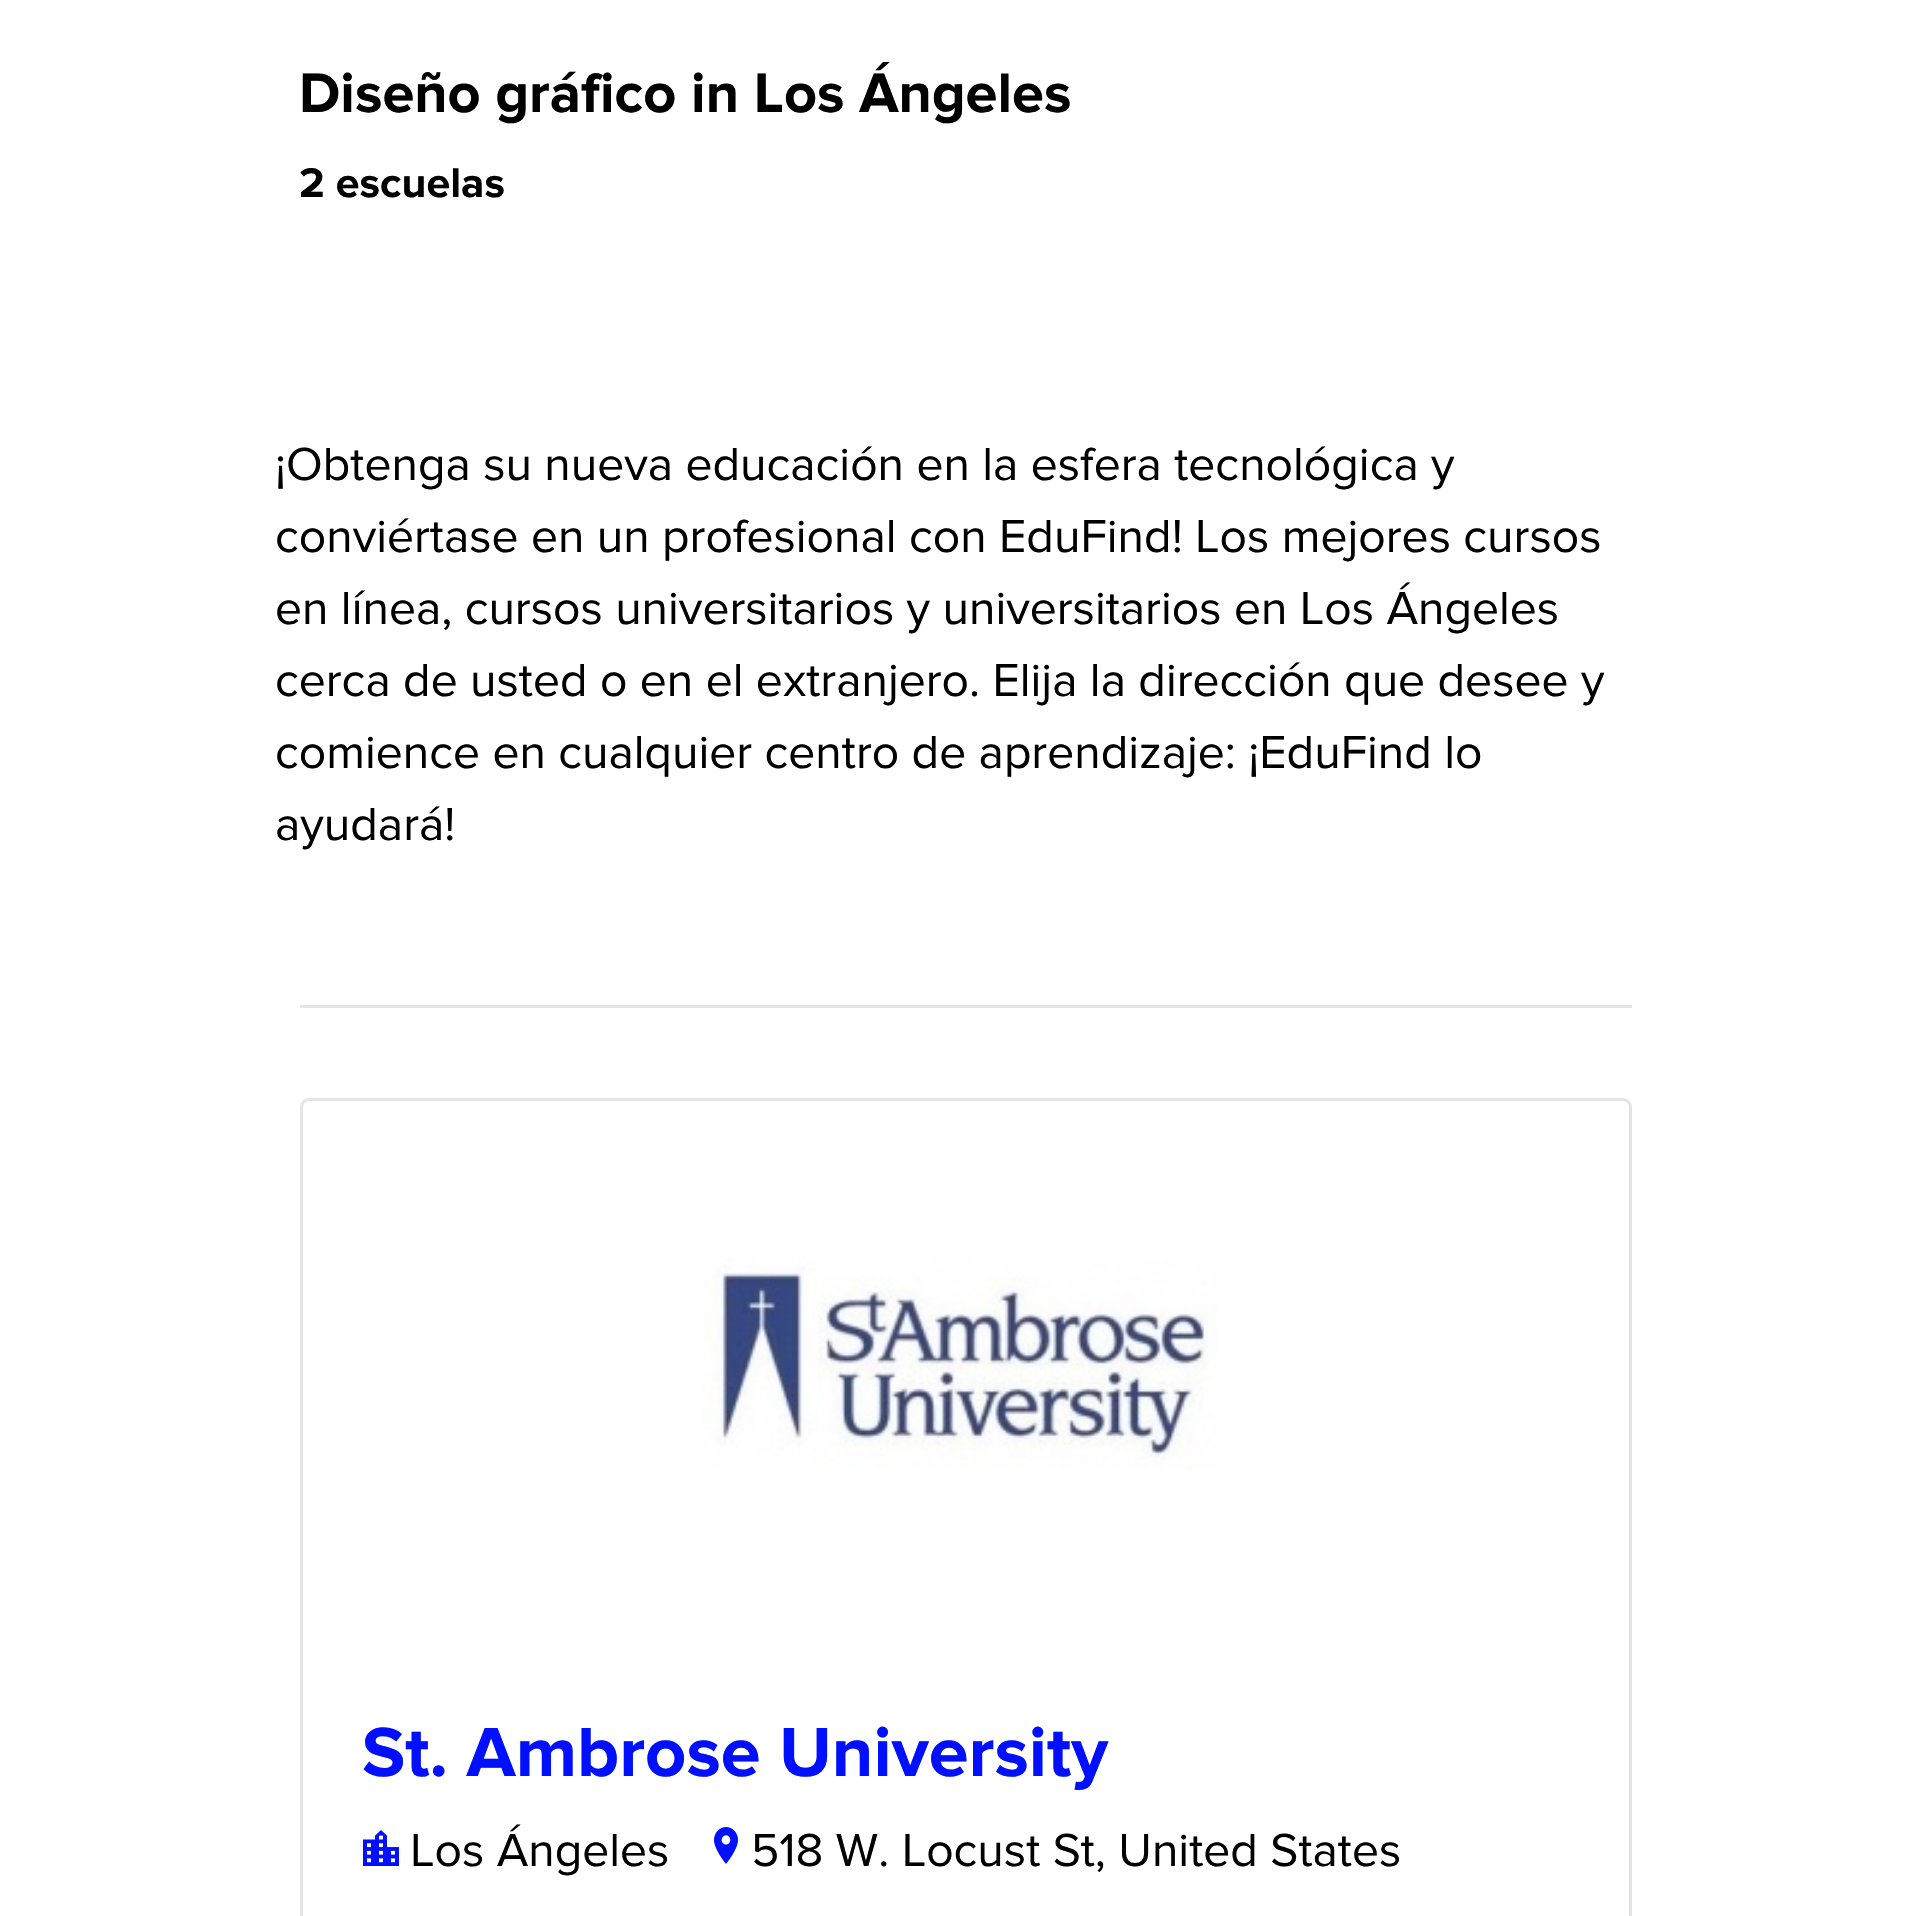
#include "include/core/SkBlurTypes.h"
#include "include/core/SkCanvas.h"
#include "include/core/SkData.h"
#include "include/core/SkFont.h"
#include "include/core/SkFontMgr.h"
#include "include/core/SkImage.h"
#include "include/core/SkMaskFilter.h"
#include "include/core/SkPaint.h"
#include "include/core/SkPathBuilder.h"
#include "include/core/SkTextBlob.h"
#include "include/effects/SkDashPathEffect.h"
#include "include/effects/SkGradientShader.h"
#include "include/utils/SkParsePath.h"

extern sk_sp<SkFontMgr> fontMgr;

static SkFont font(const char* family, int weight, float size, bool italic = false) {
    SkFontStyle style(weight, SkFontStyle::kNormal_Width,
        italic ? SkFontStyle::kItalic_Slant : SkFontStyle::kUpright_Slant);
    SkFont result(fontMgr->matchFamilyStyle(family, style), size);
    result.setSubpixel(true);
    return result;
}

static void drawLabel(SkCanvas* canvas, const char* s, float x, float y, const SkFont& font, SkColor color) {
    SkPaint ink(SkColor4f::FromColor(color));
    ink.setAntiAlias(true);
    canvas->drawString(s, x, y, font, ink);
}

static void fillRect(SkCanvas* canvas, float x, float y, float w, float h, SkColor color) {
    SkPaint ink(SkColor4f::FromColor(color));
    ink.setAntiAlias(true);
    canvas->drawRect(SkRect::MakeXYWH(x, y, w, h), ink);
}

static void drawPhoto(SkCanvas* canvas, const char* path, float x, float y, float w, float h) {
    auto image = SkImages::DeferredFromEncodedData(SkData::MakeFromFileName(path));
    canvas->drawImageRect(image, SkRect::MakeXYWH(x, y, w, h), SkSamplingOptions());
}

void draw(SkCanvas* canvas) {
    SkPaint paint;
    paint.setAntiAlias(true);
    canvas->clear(0xFFFFFFFF);
    SkFont font1 = font("Proxima Nova", 700, 57.6f);
    drawLabel(canvas, "Diseño gráfico in Los Ángeles", 299, 112, font1, 0xFF000000);
    SkFont font2 = font("Proxima Nova", 700, 43);
    drawLabel(canvas, "2 escuelas", 299, 197, font2, 0xFF000000);
    SkFont font3 = font("Proxima Nova", 400, 48);
    drawLabel(canvas, "¡Obtenga su nueva educación en la esfera tecnológica y", 275, 480, font3, 0xFF000000);
    drawLabel(canvas, "conviértase en un profesional con EduFind! Los mejores cursos", 275, 552, font3, 0xFF000000);
    drawLabel(canvas, "en línea, cursos universitarios y universitarios en Los Ángeles", 275, 624, font3, 0xFF000000);
    drawLabel(canvas, "cerca de usted o en el extranjero. Elija la dirección que desee y", 275, 696, font3, 0xFF000000);
    drawLabel(canvas, "comience en cualquier centro de aprendizaje: ¡EduFind lo", 275, 768, font3, 0xFF000000);
    drawLabel(canvas, "ayudará!", 275, 840, font3, 0xFF000000);
    fillRect(canvas, 300, 1005, 1332, 3, 0xFFE4E4E4);
    paint.setStroke(true);
    paint.setStrokeWidth(3);
    paint.setColor(0xFFE4E4E4);
    canvas->drawRoundRect(SkRect::MakeXYWH(301.5f, 1099.5f, 1329, 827), 7.5f, 7.5f, paint);
    drawPhoto(canvas, "assets/img1.png", 702, 1257, 516, 212);
    SkFont font4 = font("Proxima Nova", 700, 72);
    drawLabel(canvas, "St. Ambrose University", 362, 1776, font4, 0xFF000FFE);
    drawPhoto(canvas, "assets/img2.png", 363, 1830, 36, 36);
    drawLabel(canvas, "Los Ángeles", 410, 1866, font3, 0xFF000000);
    drawPhoto(canvas, "assets/img3.png", 714, 1827, 24, 37);
    drawLabel(canvas, "518 W. Locust St, United States", 751, 1866, font3, 0xFF000000);
}
